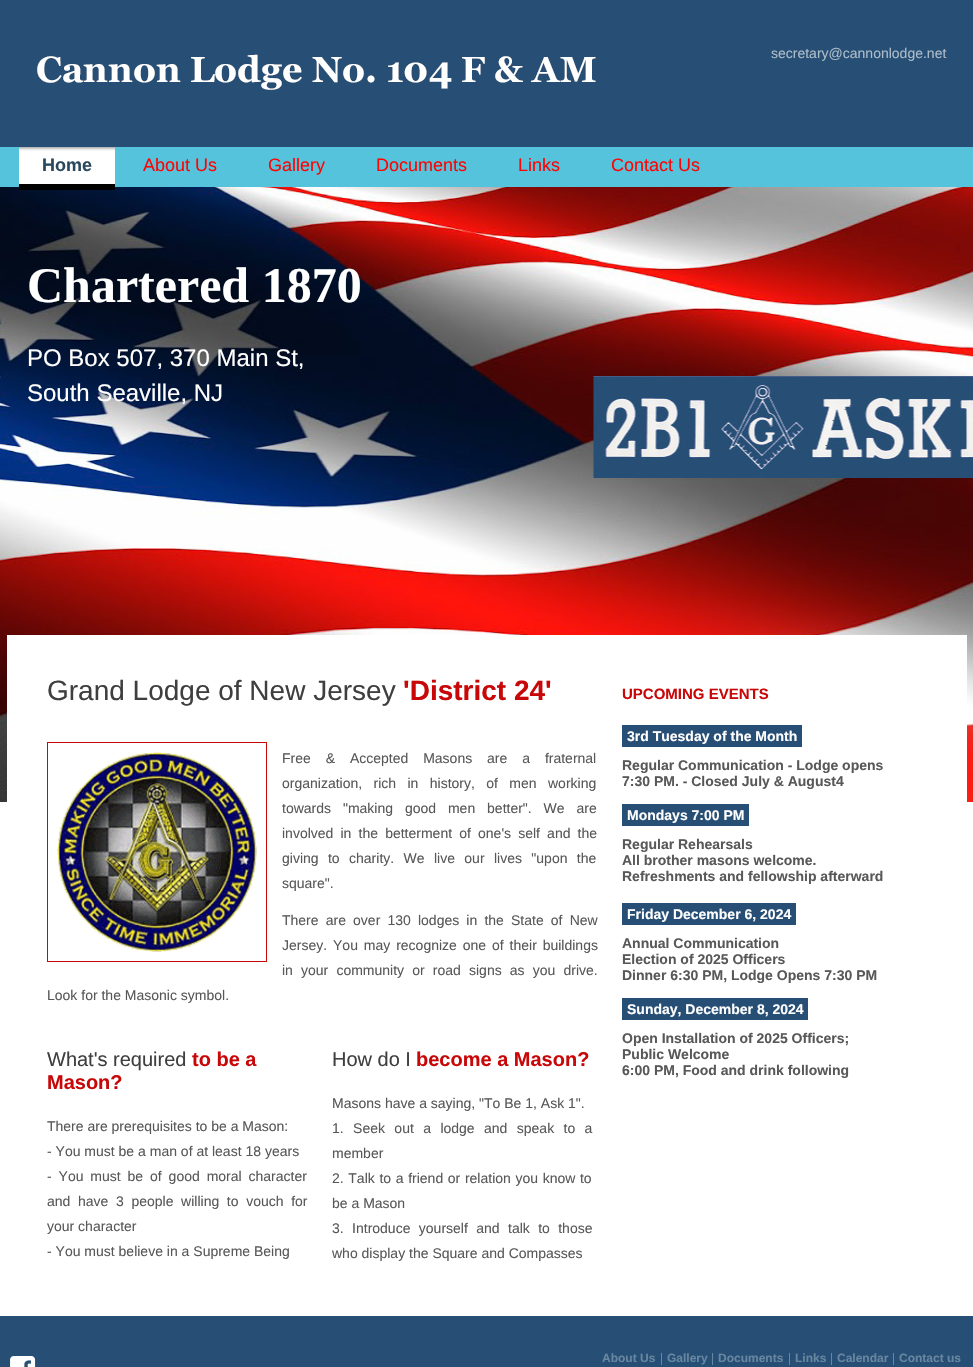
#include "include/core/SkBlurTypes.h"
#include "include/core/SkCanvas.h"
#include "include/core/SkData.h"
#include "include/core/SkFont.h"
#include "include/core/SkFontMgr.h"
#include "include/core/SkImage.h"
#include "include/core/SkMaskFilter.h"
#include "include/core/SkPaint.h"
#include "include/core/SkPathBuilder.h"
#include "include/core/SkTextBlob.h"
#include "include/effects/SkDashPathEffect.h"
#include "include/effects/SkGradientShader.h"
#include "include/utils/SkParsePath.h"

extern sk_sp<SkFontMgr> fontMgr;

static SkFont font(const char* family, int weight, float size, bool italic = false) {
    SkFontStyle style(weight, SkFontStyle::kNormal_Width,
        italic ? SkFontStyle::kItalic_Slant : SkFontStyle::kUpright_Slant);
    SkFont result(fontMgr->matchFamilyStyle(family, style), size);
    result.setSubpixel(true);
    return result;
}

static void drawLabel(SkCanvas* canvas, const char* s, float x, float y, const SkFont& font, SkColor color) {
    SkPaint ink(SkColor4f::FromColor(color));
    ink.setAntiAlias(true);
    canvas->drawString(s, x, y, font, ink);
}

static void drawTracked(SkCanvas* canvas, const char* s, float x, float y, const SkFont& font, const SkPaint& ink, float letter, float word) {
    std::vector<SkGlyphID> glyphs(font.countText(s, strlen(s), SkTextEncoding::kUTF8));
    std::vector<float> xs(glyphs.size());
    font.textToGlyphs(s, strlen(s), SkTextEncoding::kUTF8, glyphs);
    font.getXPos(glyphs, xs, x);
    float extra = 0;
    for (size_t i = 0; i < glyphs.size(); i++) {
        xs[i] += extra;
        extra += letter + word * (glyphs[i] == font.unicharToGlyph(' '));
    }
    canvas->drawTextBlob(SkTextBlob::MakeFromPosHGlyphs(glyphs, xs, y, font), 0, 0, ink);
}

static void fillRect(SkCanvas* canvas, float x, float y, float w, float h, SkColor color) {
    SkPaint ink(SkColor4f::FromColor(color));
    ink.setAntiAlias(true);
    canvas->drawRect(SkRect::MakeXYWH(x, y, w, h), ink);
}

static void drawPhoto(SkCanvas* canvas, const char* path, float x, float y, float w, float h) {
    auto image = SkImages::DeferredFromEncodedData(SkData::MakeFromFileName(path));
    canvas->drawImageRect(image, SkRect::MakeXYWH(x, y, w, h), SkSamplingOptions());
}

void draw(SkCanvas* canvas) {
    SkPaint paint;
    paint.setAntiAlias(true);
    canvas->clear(0xFFFFFFFF);
    drawPhoto(canvas, "assets/img1.png", 0, 187, 973, 615);
    drawPhoto(canvas, "assets/img2.png", 0, 0, 973, 187);
    drawPhoto(canvas, "assets/img3.png", 37, 54, 559, 36);
    SkFont font1 = font("Liberation Sans", 400, 14);
    drawLabel(canvas, "secretary@cannonlodge.net", 771, 58, font1, 0xFFACBCC9);
    drawPhoto(canvas, "assets/img4.png", 19, 147, 96, 43);
    SkFont font2 = font("Liberation Sans", 700, 18);
    drawLabel(canvas, "Home", 42, 171, font2, 0xFF2A495E);
    SkFont font3 = font("Liberation Sans", 400, 18);
    drawLabel(canvas, "About Us", 143, 171, font3, 0xFFFE0505);
    drawLabel(canvas, "Gallery", 268, 171, font3, 0xFFFE0505);
    drawLabel(canvas, "Documents", 376, 171, font3, 0xFFFE0505);
    drawLabel(canvas, "Links", 518, 171, font3, 0xFFFE0505);
    drawLabel(canvas, "Contact Us", 611, 171, font3, 0xFFFE0505);
    drawPhoto(canvas, "assets/img5.png", 590, 372, 383, 112);
    SkFont font4 = font("Liberation Serif", 700, 50);
    drawLabel(canvas, "Chartered 1870", 27, 302, font4, 0xFFFFFFFF);
    SkFont font5 = font("Liberation Sans", 400, 24);
    drawLabel(canvas, "PO Box 507, 370 Main St,", 27, 366, font5, 0xFFFFFFFF);
    drawLabel(canvas, "South Seaville, NJ", 27, 401, font5, 0xFFFFFFFF);
    fillRect(canvas, 7, 635, 960, 167, 0xFFFFFFFF);
    SkFont font6 = font("Liberation Sans", 400, 28);
    drawLabel(canvas, "Grand Lodge of New Jersey", 47, 700, font6, 0xFF3F3F3F);
    SkFont font7 = font("Liberation Sans", 700, 28);
    drawLabel(canvas, "'District 24'", 403, 700, font7, 0xFFC80708);
    paint.setStroke(true);
    paint.setStrokeWidth(1);
    paint.setColor(0xFFC80708);
    canvas->drawRect(SkRect::MakeXYWH(47.5f, 742.5f, 219, 219), paint);
    drawPhoto(canvas, "assets/img6.png", 57, 752, 200, 200);
    paint.setStroke(false);
    paint.setColor(0xFF585858);
    drawTracked(canvas, "Free & Accepted Masons are a fraternal", 282, 763, font1, paint, 0, 11);
    drawTracked(canvas, "organization, rich in history, of men working", 282, 788, font1, paint, 0, 7.5f);
    drawTracked(canvas, "towards \"making good men better\". We are", 282, 813, font1, paint, 0, 8);
    drawTracked(canvas, "involved in the betterment of one's self and the", 282, 838, font1, paint, 0, 3.25f);
    drawTracked(canvas, "giving to charity. We live our lives \"upon the", 282, 863, font1, paint, 0, 5.5f);
    drawLabel(canvas, "square\".", 282, 888, font1, 0xFF585858);
    drawTracked(canvas, "There are over 130 lodges in the State of New", 282, 925, font1, paint, 0, 3.25f);
    drawTracked(canvas, "Jersey. You may recognize one of their buildings", 282, 950, font1, paint, 0, 2);
    drawTracked(canvas, "in your community or road signs as you drive.", 282, 975, font1, paint, 0, 4.25f);
    drawLabel(canvas, "Look for the Masonic symbol.", 47, 1000, font1, 0xFF585858);
    SkFont font8 = font("Liberation Sans", 400, 20);
    drawLabel(canvas, "What's required", 47, 1066, font8, 0xFF3F3F3F);
    SkFont font9 = font("Liberation Sans", 700, 20);
    drawLabel(canvas, "to be a", 192, 1066, font9, 0xFFC80708);
    drawLabel(canvas, "Mason?", 47, 1089, font9, 0xFFC80708);
    drawLabel(canvas, "There are prerequisites to be a Mason:", 47, 1131, font1, 0xFF585858);
    drawLabel(canvas, "- You must be a man of at least 18 years", 47, 1156, font1, 0xFF585858);
    drawTracked(canvas, "- You must be of good moral character", 47, 1181, font1, paint, 0, 3);
    drawTracked(canvas, "and have 3 people willing to vouch for", 47, 1206, font1, paint, 0, 3.75f);
    drawLabel(canvas, "your character", 47, 1231, font1, 0xFF585858);
    drawLabel(canvas, "- You must believe in a Supreme Being", 47, 1256, font1, 0xFF585858);
    drawLabel(canvas, "How do I", 332, 1066, font8, 0xFF3F3F3F);
    drawLabel(canvas, "become a Mason?", 416, 1066, font9, 0xFFC80708);
    drawLabel(canvas, "Masons have a saying, \"To Be 1, Ask 1\".", 332, 1108, font1, 0xFF585858);
    drawTracked(canvas, "1. Seek out a lodge and speak to a", 332, 1133, font1, paint, 0, 5.5f);
    drawLabel(canvas, "member", 332, 1158, font1, 0xFF585858);
    drawTracked(canvas, "2. Talk to a friend or relation you know to", 332, 1183, font1, paint, 0, 0.75f);
    drawLabel(canvas, "be a Mason", 332, 1208, font1, 0xFF585858);
    drawTracked(canvas, "3. Introduce yourself and talk to those", 332, 1233, font1, paint, 0, 4.5f);
    drawLabel(canvas, "who display the Square and Compasses", 332, 1258, font1, 0xFF585858);
    SkFont font10 = font("Liberation Sans", 700, 15);
    drawLabel(canvas, "UPCOMING EVENTS", 622, 699, font10, 0xFFC80708);
    fillRect(canvas, 622, 725, 180, 22, 0xFF274E75);
    SkFont font11 = font("Liberation Sans", 700, 14);
    drawLabel(canvas, "3rd Tuesday of the Month", 627, 741, font11, 0xFFFFFFFF);
    drawLabel(canvas, "Regular Communication - Lodge opens", 622, 770, font11, 0xFF585858);
    drawLabel(canvas, "7:30 PM. - Closed July & August4", 622, 786, font11, 0xFF585858);
    fillRect(canvas, 622, 804, 127, 22, 0xFF274E75);
    drawLabel(canvas, "Mondays 7:00 PM", 627, 820, font11, 0xFFFFFFFF);
    drawLabel(canvas, "Regular Rehearsals", 622, 849, font11, 0xFF585858);
    drawLabel(canvas, "All brother masons welcome.", 622, 865, font11, 0xFF585858);
    drawLabel(canvas, "Refreshments and fellowship afterward", 622, 881, font11, 0xFF585858);
    fillRect(canvas, 622, 903, 174, 22, 0xFF274E75);
    drawLabel(canvas, "Friday December 6, 2024", 627, 919, font11, 0xFFFFFFFF);
    drawLabel(canvas, "Annual Communication", 622, 948, font11, 0xFF585858);
    drawLabel(canvas, "Election of 2025 Officers", 622, 964, font11, 0xFF585858);
    drawLabel(canvas, "Dinner 6:30 PM, Lodge Opens 7:30 PM", 622, 980, font11, 0xFF585858);
    fillRect(canvas, 622, 998, 186, 22, 0xFF274E75);
    drawLabel(canvas, "Sunday, December 8, 2024", 627, 1014, font11, 0xFFFFFFFF);
    drawLabel(canvas, "Open Installation of 2025 Officers;", 622, 1043, font11, 0xFF585858);
    drawLabel(canvas, "Public Welcome", 622, 1059, font11, 0xFF585858);
    drawLabel(canvas, "6:00 PM, Food and drink following", 622, 1075, font11, 0xFF585858);
    fillRect(canvas, 0, 1316, 973, 51, 0xFF274F75);
    drawPhoto(canvas, "assets/img7.png", 10, 1356, 26, 11);
    SkFont font12 = font("Liberation Sans", 700, 12);
    drawLabel(canvas, "About Us", 602, 1362, font12, 0xFF6886A0);
    fillRect(canvas, 661, 1353, 1, 12, 0xFF6886A0);
    drawLabel(canvas, "Gallery", 667, 1362, font12, 0xFF6886A0);
    fillRect(canvas, 712, 1353, 1, 12, 0xFF6886A0);
    drawLabel(canvas, "Documents", 718, 1362, font12, 0xFF6886A0);
    fillRect(canvas, 789, 1353, 1, 12, 0xFF6886A0);
    drawLabel(canvas, "Links", 795, 1362, font12, 0xFF6886A0);
    fillRect(canvas, 831, 1353, 1, 12, 0xFF6886A0);
    drawLabel(canvas, "Calendar", 837, 1362, font12, 0xFF6886A0);
    fillRect(canvas, 893, 1353, 1, 12, 0xFF6886A0);
    drawLabel(canvas, "Contact us", 899, 1362, font12, 0xFF6886A0);
}
